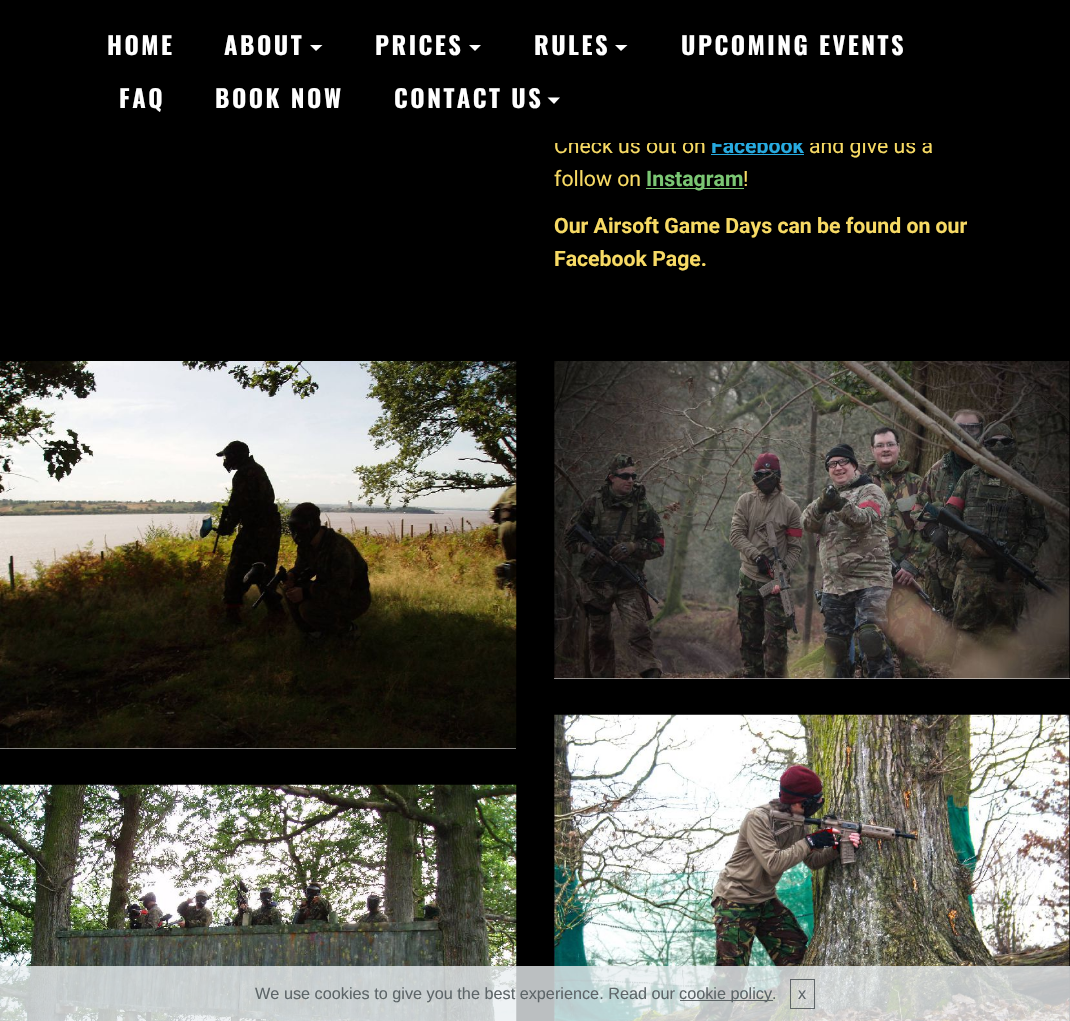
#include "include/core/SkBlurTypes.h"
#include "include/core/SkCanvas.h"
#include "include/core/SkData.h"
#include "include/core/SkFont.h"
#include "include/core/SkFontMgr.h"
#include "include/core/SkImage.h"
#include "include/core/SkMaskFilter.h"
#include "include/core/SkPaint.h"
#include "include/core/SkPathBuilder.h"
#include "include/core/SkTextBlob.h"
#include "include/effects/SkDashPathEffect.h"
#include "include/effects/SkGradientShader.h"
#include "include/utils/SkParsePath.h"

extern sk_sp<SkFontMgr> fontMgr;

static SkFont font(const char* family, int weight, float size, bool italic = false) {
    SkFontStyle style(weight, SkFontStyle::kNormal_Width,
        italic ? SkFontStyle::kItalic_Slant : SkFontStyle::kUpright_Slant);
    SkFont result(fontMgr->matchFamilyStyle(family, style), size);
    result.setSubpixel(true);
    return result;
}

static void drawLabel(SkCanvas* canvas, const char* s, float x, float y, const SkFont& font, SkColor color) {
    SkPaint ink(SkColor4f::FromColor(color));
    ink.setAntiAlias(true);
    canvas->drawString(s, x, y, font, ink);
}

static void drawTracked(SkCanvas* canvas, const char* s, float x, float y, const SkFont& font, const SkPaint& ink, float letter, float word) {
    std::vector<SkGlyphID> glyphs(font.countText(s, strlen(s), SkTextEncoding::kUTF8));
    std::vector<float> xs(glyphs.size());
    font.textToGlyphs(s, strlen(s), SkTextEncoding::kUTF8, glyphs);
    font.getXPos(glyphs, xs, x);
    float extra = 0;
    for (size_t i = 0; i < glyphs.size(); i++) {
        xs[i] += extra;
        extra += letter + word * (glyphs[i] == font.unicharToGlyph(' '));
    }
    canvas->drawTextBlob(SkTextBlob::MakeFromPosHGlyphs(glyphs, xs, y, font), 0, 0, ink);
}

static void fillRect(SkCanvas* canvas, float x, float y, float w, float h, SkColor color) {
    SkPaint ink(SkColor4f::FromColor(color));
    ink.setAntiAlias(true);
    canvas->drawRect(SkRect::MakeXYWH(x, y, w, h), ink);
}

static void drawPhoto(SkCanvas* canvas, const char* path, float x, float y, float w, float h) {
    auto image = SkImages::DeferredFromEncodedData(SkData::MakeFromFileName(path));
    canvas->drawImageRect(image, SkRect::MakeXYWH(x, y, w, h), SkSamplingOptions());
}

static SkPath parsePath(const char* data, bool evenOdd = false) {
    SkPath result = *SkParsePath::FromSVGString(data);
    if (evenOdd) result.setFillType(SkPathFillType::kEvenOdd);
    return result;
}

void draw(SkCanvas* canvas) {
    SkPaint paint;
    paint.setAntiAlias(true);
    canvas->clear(0xFF000000);
    SkFont font1 = font("Roboto", 400, 21.25f);
    drawLabel(canvas, "Check us out on", 554, 153, font1, 0xFFF7DA64);
    SkFont font2 = font("Roboto", 700, 21.25f);
    drawLabel(canvas, "Facebook", 711, 153, font2, 0xFF27AAE0);
    drawLabel(canvas, "and give us a", 809, 153, font1, 0xFFF7DA64);
    fillRect(canvas, 555, 137, 376, 6, 0xFF000000);
    SkFont font3 = font("Oswald", 700, 24.5f);
    paint.setColor(0xFFFFFFFF);
    drawTracked(canvas, "HOME", 107, 55, font3, paint, 2.5f, 0);
    drawTracked(canvas, "ABOUT", 224, 55, font3, paint, 2.5f, 0);
    canvas->drawPath(parsePath("M310 45H322.5L316 51Z"), paint);
    drawTracked(canvas, "PRICES", 375, 55, font3, paint, 2.5f, 0);
    canvas->drawPath(parsePath("M469 45H481L475 51Z"), paint);
    drawTracked(canvas, "RULES", 534, 55, font3, paint, 2.5f, 0);
    canvas->drawPath(parsePath("M615 45H627.5L621 51Z"), paint);
    drawTracked(canvas, "UPCOMING EVENTS", 681, 55, font3, paint, 2.5f, 0);
    drawTracked(canvas, "FAQ", 119, 108, font3, paint, 2.5f, 0);
    drawTracked(canvas, "BOOK NOW", 215, 108, font3, paint, 2.5f, 0);
    drawTracked(canvas, "CONTACT US", 394, 108, font3, paint, 2.5f, 0);
    canvas->drawPath(parsePath("M547.5 97.5H560L554 104Z"), paint);
    fillRect(canvas, 711, 154, 93, 1, 0xFF27AAE0);
    drawLabel(canvas, "follow on", 554, 186, font1, 0xFFF7DA64);
    fillRect(canvas, 646, 188, 98, 1, 0xFF7AC673);
    drawLabel(canvas, "Instagram", 646, 186, font2, 0xFF7AC673);
    drawLabel(canvas, "!", 743, 186, font1, 0xFFF7DA64);
    drawLabel(canvas, "Our Airsoft Game Days can be found on our", 554, 233, font2, 0xFFF7DA64);
    drawLabel(canvas, "Facebook Page.", 554, 266, font2, 0xFFF7DA64);
    fillRect(canvas, 0, 748, 516, 1, 0xFFFFFFFF);
    drawPhoto(canvas, "assets/img1.png", 0, 361, 517, 388);
    fillRect(canvas, 554, 678, 516, 1, 0xFFFFFFFF);
    drawPhoto(canvas, "assets/img2.png", 554, 361, 516, 318);
    drawPhoto(canvas, "assets/img3.png", 0, 784, 517, 237);
    drawPhoto(canvas, "assets/img4.png", 553, 714, 517, 307);
    fillRect(canvas, 0, 966, 1070, 55, 0xCCEAEFF1);
    SkFont font4 = font("Liberation Sans", 400, 16.25f);
    drawLabel(canvas, "We use cookies to give you the best experience. Read our", 255, 999, font4, 0xFF5D6568);
    fillRect(canvas, 680, 1000, 93, 1, 0xCC424A4D);
    drawLabel(canvas, "cookie policy", 679, 999, font4, 0xFF5D6568);
    drawLabel(canvas, ".", 772, 999, font4, 0xFF5D6568);
    paint.setStroke(true);
    paint.setStrokeWidth(1);
    paint.setColor(0xCC424A4D);
    canvas->drawRect(SkRect::MakeXYWH(790.5f, 979.5f, 24, 29), paint);
    drawLabel(canvas, "x", 798, 999, font4, 0xFF5D6568);
}
